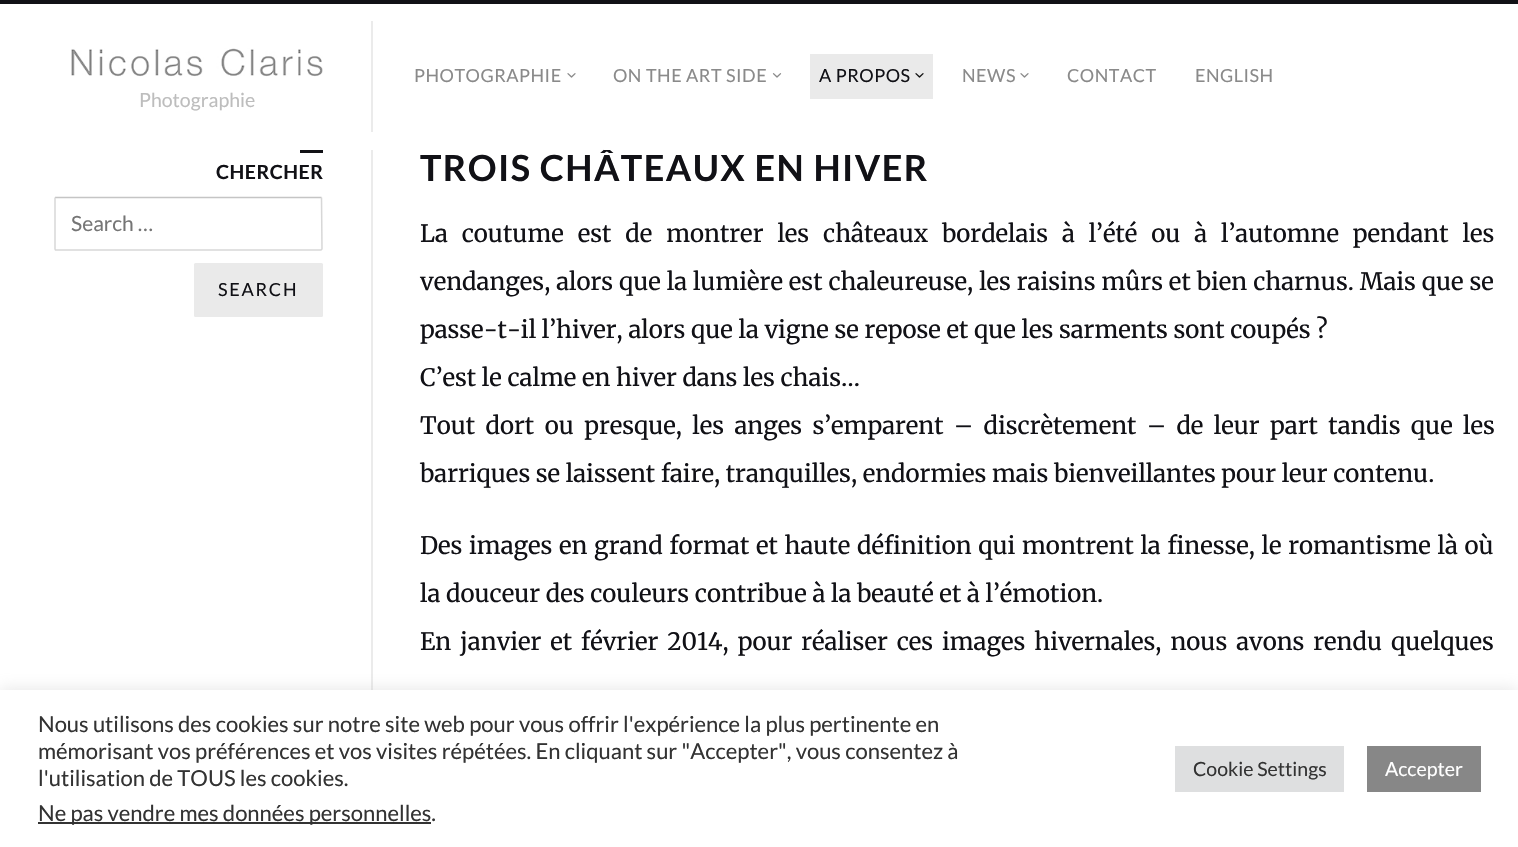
#include "include/core/SkBlurTypes.h"
#include "include/core/SkCanvas.h"
#include "include/core/SkData.h"
#include "include/core/SkFont.h"
#include "include/core/SkFontMgr.h"
#include "include/core/SkImage.h"
#include "include/core/SkMaskFilter.h"
#include "include/core/SkPaint.h"
#include "include/core/SkPathBuilder.h"
#include "include/core/SkTextBlob.h"
#include "include/effects/SkDashPathEffect.h"
#include "include/effects/SkGradientShader.h"
#include "include/utils/SkParsePath.h"

extern sk_sp<SkFontMgr> fontMgr;

static SkFont font(const char* family, int weight, float size, bool italic = false) {
    SkFontStyle style(weight, SkFontStyle::kNormal_Width,
        italic ? SkFontStyle::kItalic_Slant : SkFontStyle::kUpright_Slant);
    SkFont result(fontMgr->matchFamilyStyle(family, style), size);
    result.setSubpixel(true);
    return result;
}

static void drawLabel(SkCanvas* canvas, const char* s, float x, float y, const SkFont& font, SkColor color) {
    SkPaint ink(SkColor4f::FromColor(color));
    ink.setAntiAlias(true);
    canvas->drawString(s, x, y, font, ink);
}

static void drawTracked(SkCanvas* canvas, const char* s, float x, float y, const SkFont& font, const SkPaint& ink, float letter, float word) {
    std::vector<SkGlyphID> glyphs(font.countText(s, strlen(s), SkTextEncoding::kUTF8));
    std::vector<float> xs(glyphs.size());
    font.textToGlyphs(s, strlen(s), SkTextEncoding::kUTF8, glyphs);
    font.getXPos(glyphs, xs, x);
    float extra = 0;
    for (size_t i = 0; i < glyphs.size(); i++) {
        xs[i] += extra;
        extra += letter + word * (glyphs[i] == font.unicharToGlyph(' '));
    }
    canvas->drawTextBlob(SkTextBlob::MakeFromPosHGlyphs(glyphs, xs, y, font), 0, 0, ink);
}

static void fillRect(SkCanvas* canvas, float x, float y, float w, float h, SkColor color) {
    SkPaint ink(SkColor4f::FromColor(color));
    ink.setAntiAlias(true);
    canvas->drawRect(SkRect::MakeXYWH(x, y, w, h), ink);
}

static void fillRRect(SkCanvas* canvas, float x, float y, float w, float h, float radius, SkColor color) {
    SkPaint ink(SkColor4f::FromColor(color));
    ink.setAntiAlias(true);
    canvas->drawRoundRect(SkRect::MakeXYWH(x, y, w, h), radius, radius, ink);
}

static void drawPhoto(SkCanvas* canvas, const char* path, float x, float y, float w, float h) {
    auto image = SkImages::DeferredFromEncodedData(SkData::MakeFromFileName(path));
    canvas->drawImageRect(image, SkRect::MakeXYWH(x, y, w, h), SkSamplingOptions());
}

static SkPath parsePath(const char* data, bool evenOdd = false) {
    SkPath result = *SkParsePath::FromSVGString(data);
    if (evenOdd) result.setFillType(SkPathFillType::kEvenOdd);
    return result;
}

void draw(SkCanvas* canvas) {
    SkPaint paint;
    paint.setAntiAlias(true);
    canvas->clear(0xFFFFFFFF);
    SkFont font1 = font("Lato", 700, 36);
    paint.setColor(0xFF111116);
    drawTracked(canvas, "TROIS CHÂTEAUX EN HIVER", 420, 181, font1, paint, 1.4f, 0);
    fillRect(canvas, 604, 149, 6, 1, 0xFFFFFFFF);
    fillRect(canvas, 0, 0, 1518, 4, 0xFF111116);
    SkFont font2 = font("Lato", 400, 18);
    paint.setColor(0xFF8A8A8A);
    drawTracked(canvas, "PHOTOGRAPHIE", 414, 82, font2, paint, 0.5f, 0);
    drawPhoto(canvas, "assets/img1.png", 567, 73, 9, 5);
    drawTracked(canvas, "ON THE ART SIDE", 613, 82, font2, paint, 0.5f, 0);
    drawPhoto(canvas, "assets/img2.png", 772, 73, 10, 5);
    fillRect(canvas, 810, 54, 123, 45, 0xFFEAEAEA);
    paint.setColor(0xFF111116);
    drawTracked(canvas, "A PROPOS", 819, 82, font2, paint, 0.5f, 0);
    drawPhoto(canvas, "assets/img3.png", 915, 73, 9, 5);
    paint.setColor(0xFF8A8A8A);
    drawTracked(canvas, "NEWS", 962, 82, font2, paint, 0.5f, 0);
    drawPhoto(canvas, "assets/img1.png", 1020, 73, 9, 5);
    drawTracked(canvas, "CONTACT", 1067, 82, font2, paint, 0.5f, 0);
    drawTracked(canvas, "ENGLISH", 1195, 82, font2, paint, 0.5f, 0);
    fillRect(canvas, 371, 21, 2, 111, 0xFFEBEBEB);
    drawPhoto(canvas, "assets/img4.png", 71, 48, 252, 29);
    SkFont font3 = font("Lato", 400, 19.5f);
    drawLabel(canvas, "Photographie", 139, 107, font3, 0xFFBDBDBD);
    fillRect(canvas, 371, 150, 2, 540, 0xFFEBEBEB);
    fillRect(canvas, 300, 150, 23, 3, 0xFF111116);
    SkFont font4 = font("Lato", 700, 19.5f);
    paint.setColor(0xFF111116);
    drawTracked(canvas, "CHERCHER", 216, 179, font4, paint, 0.5f, 0);
    paint.setStroke(true);
    paint.setStrokeWidth(1.5f);
    paint.setColor(0xFFC5C5C5);
    canvas->drawPath(parsePath("M55 197.5H321.5"), paint);
    paint.setColor(0xFFD7D7D7);
    canvas->drawPath(parsePath("M321.5 197.5L322 249L321 250H55.5L55 249V197.5"), paint);
    SkFont font5 = font("Lato", 400, 21);
    drawLabel(canvas, "Search …", 71, 231, font5, 0xFF757575);
    fillRRect(canvas, 194, 263, 129, 54, 1.5f, 0xFFEAEAEA);
    paint.setStroke(false);
    paint.setColor(0xFF111116);
    drawTracked(canvas, "SEARCH", 218, 296, font2, paint, 1.75f, 0);
    SkFont font6 = font("Merriweather", 300, 24);
    drawTracked(canvas, "La coutume est de montrer les châteaux bordelais à l’été ou à l’automne pendant les", 420, 242, font6, paint, 0, 8.25f);
    drawTracked(canvas, "vendanges, alors que la lumière est chaleureuse, les raisins mûrs et bien charnus. Mais que se", 420, 290, font6, paint, 0, 0.25f);
    drawLabel(canvas, "passe-t-il l’hiver, alors que la vigne se repose et que les sarments sont coupés ?", 420, 338, font6, 0xFF111116);
    drawLabel(canvas, "C’est le calme en hiver dans les chais…", 420, 386, font6, 0xFF111116);
    drawTracked(canvas, "Tout dort ou presque, les anges s’emparent – discrètement – de leur part tandis que les", 420, 434, font6, paint, 0, 4.75f);
    drawLabel(canvas, "barriques se laissent faire, tranquilles, endormies mais bienveillantes pour leur contenu.", 420, 482, font6, 0xFF111116);
    drawTracked(canvas, "Des images en grand format et haute définition qui montrent la finesse, le romantisme là où", 420, 554, font6, paint, 0, 1);
    drawLabel(canvas, "la douceur des couleurs contribue à la beauté et à l’émotion.", 420, 602, font6, 0xFF111116);
    drawTracked(canvas, "En janvier et février 2014, pour réaliser ces images hivernales, nous avons rendu quelques", 420, 650, font6, paint, 0, 3.25f);
    paint.setColor(0x4DACABAB);
    paint.setMaskFilter(SkMaskFilter::MakeBlur(kNormal_SkBlurStyle, 7.5f));
    canvas->drawRect(SkRect::MakeXYWH(0, 689, 1518, 157), paint);
    paint.setMaskFilter(nullptr);
    fillRect(canvas, 0, 690, 1518, 157, 0xFFFFFFFF);
    SkFont font7 = font("Lato", 400, 22);
    drawLabel(canvas, "Nous utilisons des cookies sur notre site web pour vous offrir l'expérience la plus pertinente en", 38, 732, font7, 0xFF333333);
    drawLabel(canvas, "mémorisant vos préférences et vos visites répétées. En cliquant sur \"Accepter\", vous consentez à", 38, 759, font7, 0xFF333333);
    drawLabel(canvas, "l'utilisation de TOUS les cookies.", 38, 786, font7, 0xFF333333);
    fillRect(canvas, 38, 822, 393, 2, 0xFF333333);
    drawLabel(canvas, "Ne pas vendre mes données personnelles.", 38, 821, font7, 0xFF333333);
    fillRect(canvas, 1175, 746, 169, 46, 0xFFDEDFE0);
    drawLabel(canvas, "Cookie Settings", 1193, 776, font3, 0xFF333333);
    fillRect(canvas, 1367, 746, 114, 46, 0xFF878787);
    drawLabel(canvas, "Accepter", 1385, 776, font3, 0xFFFFFFFF);
}
